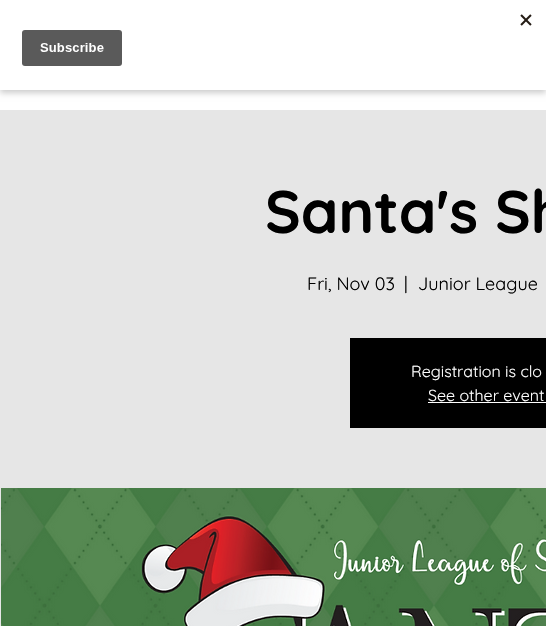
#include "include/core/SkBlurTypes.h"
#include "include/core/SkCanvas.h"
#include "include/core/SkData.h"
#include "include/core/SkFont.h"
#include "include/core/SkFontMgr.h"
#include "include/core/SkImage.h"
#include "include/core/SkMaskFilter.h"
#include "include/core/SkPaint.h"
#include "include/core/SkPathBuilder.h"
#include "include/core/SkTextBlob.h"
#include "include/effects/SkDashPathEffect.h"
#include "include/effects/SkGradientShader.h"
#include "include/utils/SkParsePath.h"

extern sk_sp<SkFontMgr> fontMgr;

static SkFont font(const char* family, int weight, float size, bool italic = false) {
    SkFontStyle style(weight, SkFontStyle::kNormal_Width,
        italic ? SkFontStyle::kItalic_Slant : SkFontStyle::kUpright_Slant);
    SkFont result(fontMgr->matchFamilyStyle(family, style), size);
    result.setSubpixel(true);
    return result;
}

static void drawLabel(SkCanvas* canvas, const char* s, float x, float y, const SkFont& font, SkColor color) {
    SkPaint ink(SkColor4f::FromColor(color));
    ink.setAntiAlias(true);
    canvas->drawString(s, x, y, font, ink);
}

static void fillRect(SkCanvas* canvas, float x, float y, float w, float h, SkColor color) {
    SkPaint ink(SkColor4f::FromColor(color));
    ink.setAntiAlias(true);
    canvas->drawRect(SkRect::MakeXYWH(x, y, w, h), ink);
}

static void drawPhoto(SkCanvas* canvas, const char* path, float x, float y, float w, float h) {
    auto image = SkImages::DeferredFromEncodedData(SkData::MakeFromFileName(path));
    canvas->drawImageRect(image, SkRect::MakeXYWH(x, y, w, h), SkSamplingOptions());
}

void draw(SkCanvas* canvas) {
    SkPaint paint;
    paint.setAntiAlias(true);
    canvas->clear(0xFFFFFFFF);
    paint.setColor(0x33000000);
    paint.setMaskFilter(SkMaskFilter::MakeBlur(kNormal_SkBlurStyle, 3));
    canvas->drawRect(SkRect::MakeXYWH(0, 3, 546, 90), paint);
    paint.setMaskFilter(nullptr);
    fillRect(canvas, 0, 0, 546, 90, 0xFFFFFFFF);
    drawPhoto(canvas, "assets/img1.png", 22, 14, 510, 52);
    fillRect(canvas, 0, 110, 546, 516, 0xFFE6E6E6);
    SkFont font1 = font("Quicksand", 700, 60);
    drawLabel(canvas, "Santa's Sh", 265, 233, font1, 0xFF000000);
    SkFont font2 = font("Quicksand", 400, 18);
    drawLabel(canvas, "Fri, Nov 03", 307, 290, font2, 0xFF000000);
    drawLabel(canvas, "|", 404, 290, font2, 0xFF000000);
    drawLabel(canvas, "Junior League", 418, 290, font2, 0xFF000000);
    fillRect(canvas, 350, 338, 196, 90, 0xFF000000);
    SkFont font3 = font("Quicksand", 400, 16);
    drawLabel(canvas, "Registration is clo", 411, 377, font3, 0xFFFFFFFF);
    drawLabel(canvas, "See other event", 428, 401, font3, 0xFFFFFFFF);
    fillRect(canvas, 428, 402, 118, 1, 0xFFFFFFFF);
    drawPhoto(canvas, "assets/img2.png", 1, 488, 545, 138);
}
